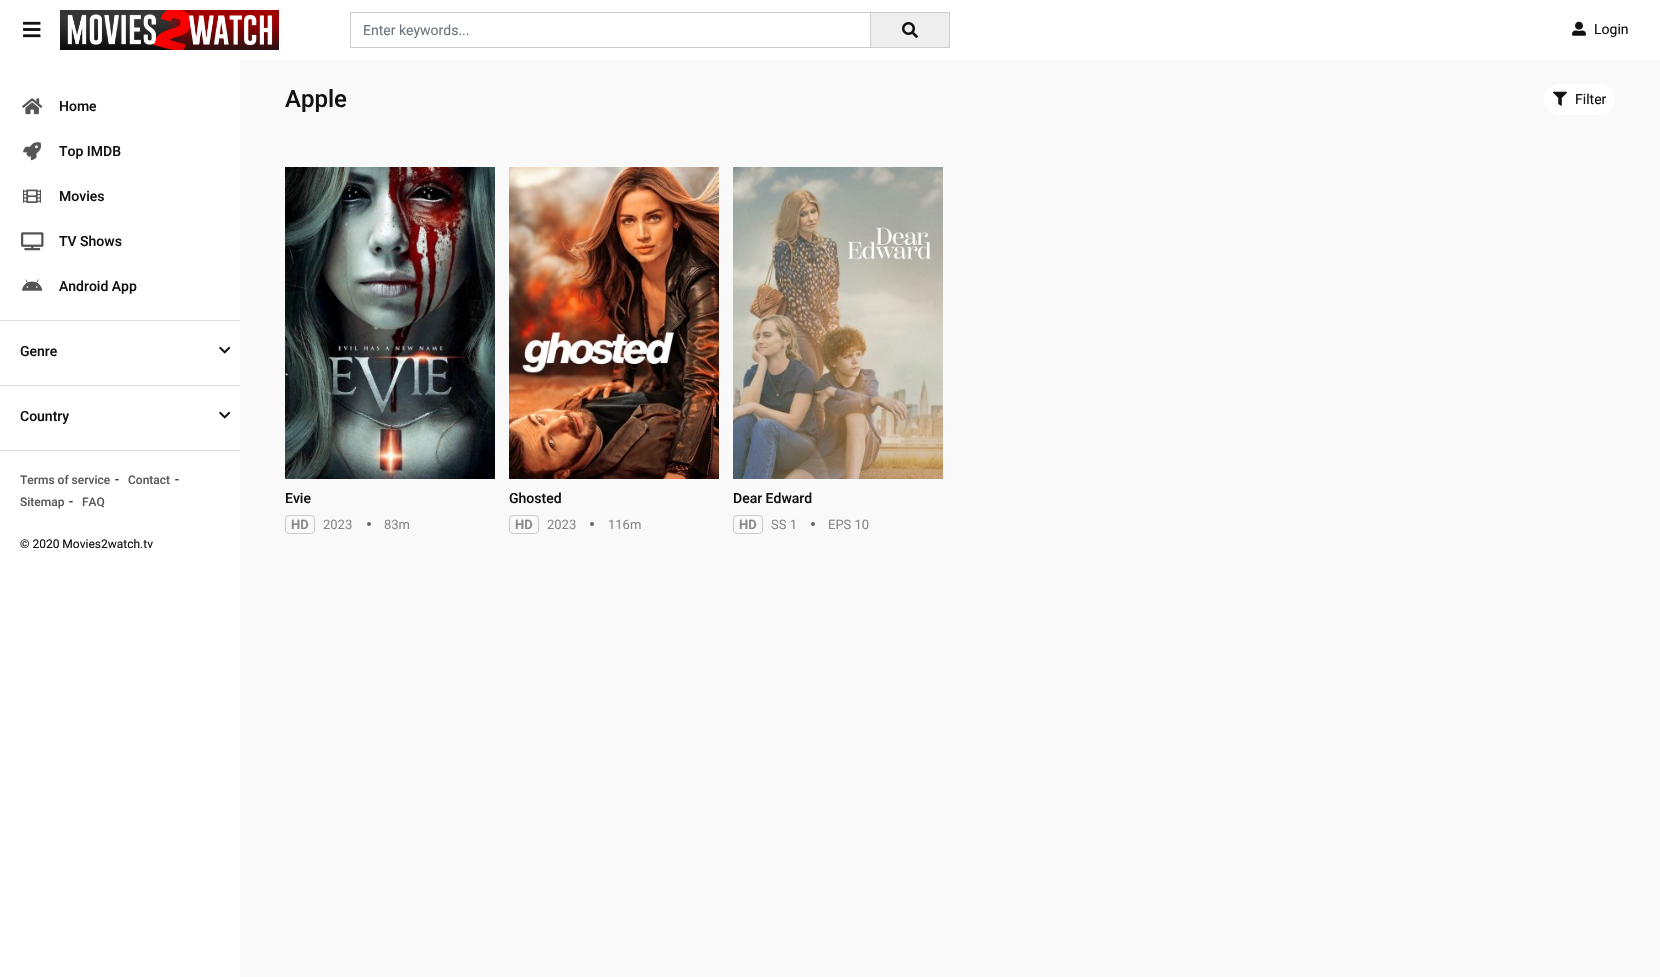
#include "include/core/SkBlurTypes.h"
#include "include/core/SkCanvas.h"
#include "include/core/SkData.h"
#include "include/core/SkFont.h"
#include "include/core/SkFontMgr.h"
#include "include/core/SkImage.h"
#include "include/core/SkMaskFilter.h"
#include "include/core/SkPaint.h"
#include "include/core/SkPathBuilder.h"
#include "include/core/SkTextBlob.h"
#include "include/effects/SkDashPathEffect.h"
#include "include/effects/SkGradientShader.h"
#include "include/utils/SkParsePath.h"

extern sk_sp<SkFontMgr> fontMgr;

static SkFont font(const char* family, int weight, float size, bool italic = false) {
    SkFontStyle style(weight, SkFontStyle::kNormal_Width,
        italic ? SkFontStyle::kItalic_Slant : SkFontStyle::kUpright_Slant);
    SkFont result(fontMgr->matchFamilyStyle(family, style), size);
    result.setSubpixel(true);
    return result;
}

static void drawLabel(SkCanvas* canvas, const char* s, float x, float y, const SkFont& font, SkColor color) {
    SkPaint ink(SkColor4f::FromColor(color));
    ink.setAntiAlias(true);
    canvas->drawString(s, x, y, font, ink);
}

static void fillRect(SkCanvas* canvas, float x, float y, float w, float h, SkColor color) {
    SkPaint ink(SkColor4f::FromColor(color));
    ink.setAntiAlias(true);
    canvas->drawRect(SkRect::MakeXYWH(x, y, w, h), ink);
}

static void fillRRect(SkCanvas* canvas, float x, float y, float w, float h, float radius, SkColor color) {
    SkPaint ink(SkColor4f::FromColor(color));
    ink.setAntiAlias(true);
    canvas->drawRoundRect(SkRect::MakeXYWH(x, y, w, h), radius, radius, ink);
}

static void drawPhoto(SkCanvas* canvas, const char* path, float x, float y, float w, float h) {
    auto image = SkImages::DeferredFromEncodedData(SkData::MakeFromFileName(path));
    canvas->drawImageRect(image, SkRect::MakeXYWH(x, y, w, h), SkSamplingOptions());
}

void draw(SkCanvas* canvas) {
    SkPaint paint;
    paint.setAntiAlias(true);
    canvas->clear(0xFFF9F9F9);
    fillRect(canvas, 0, 60, 240, 917, 0xFFFFFFFF);
    fillRect(canvas, 0, 320, 240, 1, 0xFFDDDDDD);
    drawPhoto(canvas, "assets/img1.png", 22, 98, 21, 17);
    SkFont font1 = font("Roboto", 500, 14);
    drawLabel(canvas, "Home", 59, 111, font1, 0xFF111111);
    drawPhoto(canvas, "assets/img2.png", 23, 142, 18, 19);
    drawLabel(canvas, "Top IMDB", 59, 156, font1, 0xFF111111);
    drawPhoto(canvas, "assets/img3.png", 23, 189, 18, 14);
    drawLabel(canvas, "Movies", 59, 201, font1, 0xFF111111);
    drawPhoto(canvas, "assets/img4.png", 21, 232, 23, 19);
    drawLabel(canvas, "TV Shows", 59, 246, font1, 0xFF111111);
    drawPhoto(canvas, "assets/img5.png", 22, 279, 21, 12);
    drawLabel(canvas, "Android App", 59, 291, font1, 0xFF111111);
    fillRect(canvas, 0, 385, 240, 1, 0xFFDDDDDD);
    drawLabel(canvas, "Genre", 20, 356, font1, 0xFF111111);
    drawPhoto(canvas, "assets/img6.png", 219, 346, 12, 8);
    fillRect(canvas, 0, 450, 240, 1, 0xFFDDDDDD);
    drawLabel(canvas, "Country", 20, 421, font1, 0xFF111111);
    drawPhoto(canvas, "assets/img6.png", 219, 411, 12, 8);
    SkFont font2 = font("Roboto", 500, 12);
    drawLabel(canvas, "Terms of service", 20, 484, font2, 0xFF585858);
    SkFont font3 = font("Roboto", 400, 14);
    drawLabel(canvas, "-", 115, 484, font3, 0xFF111111);
    drawLabel(canvas, "Contact", 128, 484, font2, 0xFF585858);
    drawLabel(canvas, "-", 175, 484, font3, 0xFF111111);
    drawLabel(canvas, "Sitemap", 20, 506, font2, 0xFF585858);
    drawLabel(canvas, "-", 69, 506, font3, 0xFF111111);
    drawLabel(canvas, "FAQ", 82, 506, font2, 0xFF585858);
    SkFont font4 = font("Roboto", 400, 12);
    drawLabel(canvas, "© 2020 Movies2watch.tv", 20, 548, font4, 0xFF111111);
    fillRect(canvas, 0, 0, 1660, 60, 0xFFFFFFFF);
    drawPhoto(canvas, "assets/img7.png", 23, 21, 18, 17);
    drawPhoto(canvas, "assets/img8.png", 60, 10, 219, 40);
    paint.setStroke(true);
    paint.setStrokeWidth(1);
    paint.setColor(0xFFCCCCCC);
    canvas->drawRect(SkRect::MakeXYWH(350.5f, 12.5f, 599, 35), paint);
    drawLabel(canvas, "Enter keywords...", 363, 35, font3, 0xFF6C757D);
    paint.setStroke(false);
    paint.setColor(0xFFEEEEEE);
    canvas->drawRect(SkRect::MakeXYWH(870.5f, 12.5f, 79, 35), paint);
    paint.setStroke(true);
    paint.setColor(0xFFCCCCCC);
    canvas->drawRect(SkRect::MakeXYWH(870.5f, 12.5f, 79, 35), paint);
    drawPhoto(canvas, "assets/img9.png", 902, 22, 16, 16);
    drawPhoto(canvas, "assets/img10.png", 1572, 21, 14, 15);
    drawLabel(canvas, "Login", 1594, 34, font3, 0xFF111111);
    SkFont font5 = font("Roboto", 500, 24);
    drawLabel(canvas, "Apple", 285, 107, font5, 0xFF111111);
    fillRRect(canvas, 1544, 84, 71, 31, 15.5f, 0xFFFFFFFF);
    drawPhoto(canvas, "assets/img11.png", 1553, 91, 14, 15);
    drawLabel(canvas, "Filter", 1575, 104, font3, 0xFF111111);
    drawPhoto(canvas, "assets/img12.png", 285, 167, 210, 312);
    drawLabel(canvas, "Evie", 285, 503, font1, 0xFF111111);
    canvas->drawRoundRect(SkRect::MakeXYWH(285.5f, 515.5f, 29, 18), 3.5f, 3.5f, paint);
    SkFont font6 = font("Roboto", 600, 13);
    drawLabel(canvas, "HD", 291, 529, font6, 0xFF888888);
    SkFont font7 = font("Roboto", 400, 13);
    drawLabel(canvas, "2023", 323, 529, font7, 0xFF888888);
    paint.setStroke(false);
    paint.setColor(0xFF666666);
    canvas->drawCircle(369, 524, 2, paint);
    drawLabel(canvas, "83m", 384, 529, font7, 0xFF888888);
    drawPhoto(canvas, "assets/img13.png", 509, 167, 210, 312);
    drawLabel(canvas, "Ghosted", 509, 503, font1, 0xFF111111);
    paint.setStroke(true);
    paint.setColor(0xFFCCCCCC);
    canvas->drawRoundRect(SkRect::MakeXYWH(509.5f, 515.5f, 29, 18), 3.5f, 3.5f, paint);
    drawLabel(canvas, "HD", 515, 529, font6, 0xFF888888);
    drawLabel(canvas, "2023", 547, 529, font7, 0xFF888888);
    paint.setStroke(false);
    paint.setColor(0xFF666666);
    canvas->drawCircle(592, 524, 2, paint);
    drawLabel(canvas, "116m", 608, 529, font7, 0xFF888888);
    drawPhoto(canvas, "assets/img14.png", 733, 167, 210, 312);
    drawLabel(canvas, "Dear Edward", 733, 503, font1, 0xFF111111);
    paint.setStroke(true);
    paint.setColor(0xFFCCCCCC);
    canvas->drawRoundRect(SkRect::MakeXYWH(733.5f, 515.5f, 29, 18), 3.5f, 3.5f, paint);
    drawLabel(canvas, "HD", 739, 529, font6, 0xFF888888);
    drawLabel(canvas, "SS 1", 771, 529, font7, 0xFF888888);
    paint.setStroke(false);
    paint.setColor(0xFF666666);
    canvas->drawCircle(813, 524, 2, paint);
    drawLabel(canvas, "EPS 10", 828, 529, font7, 0xFF888888);
}
